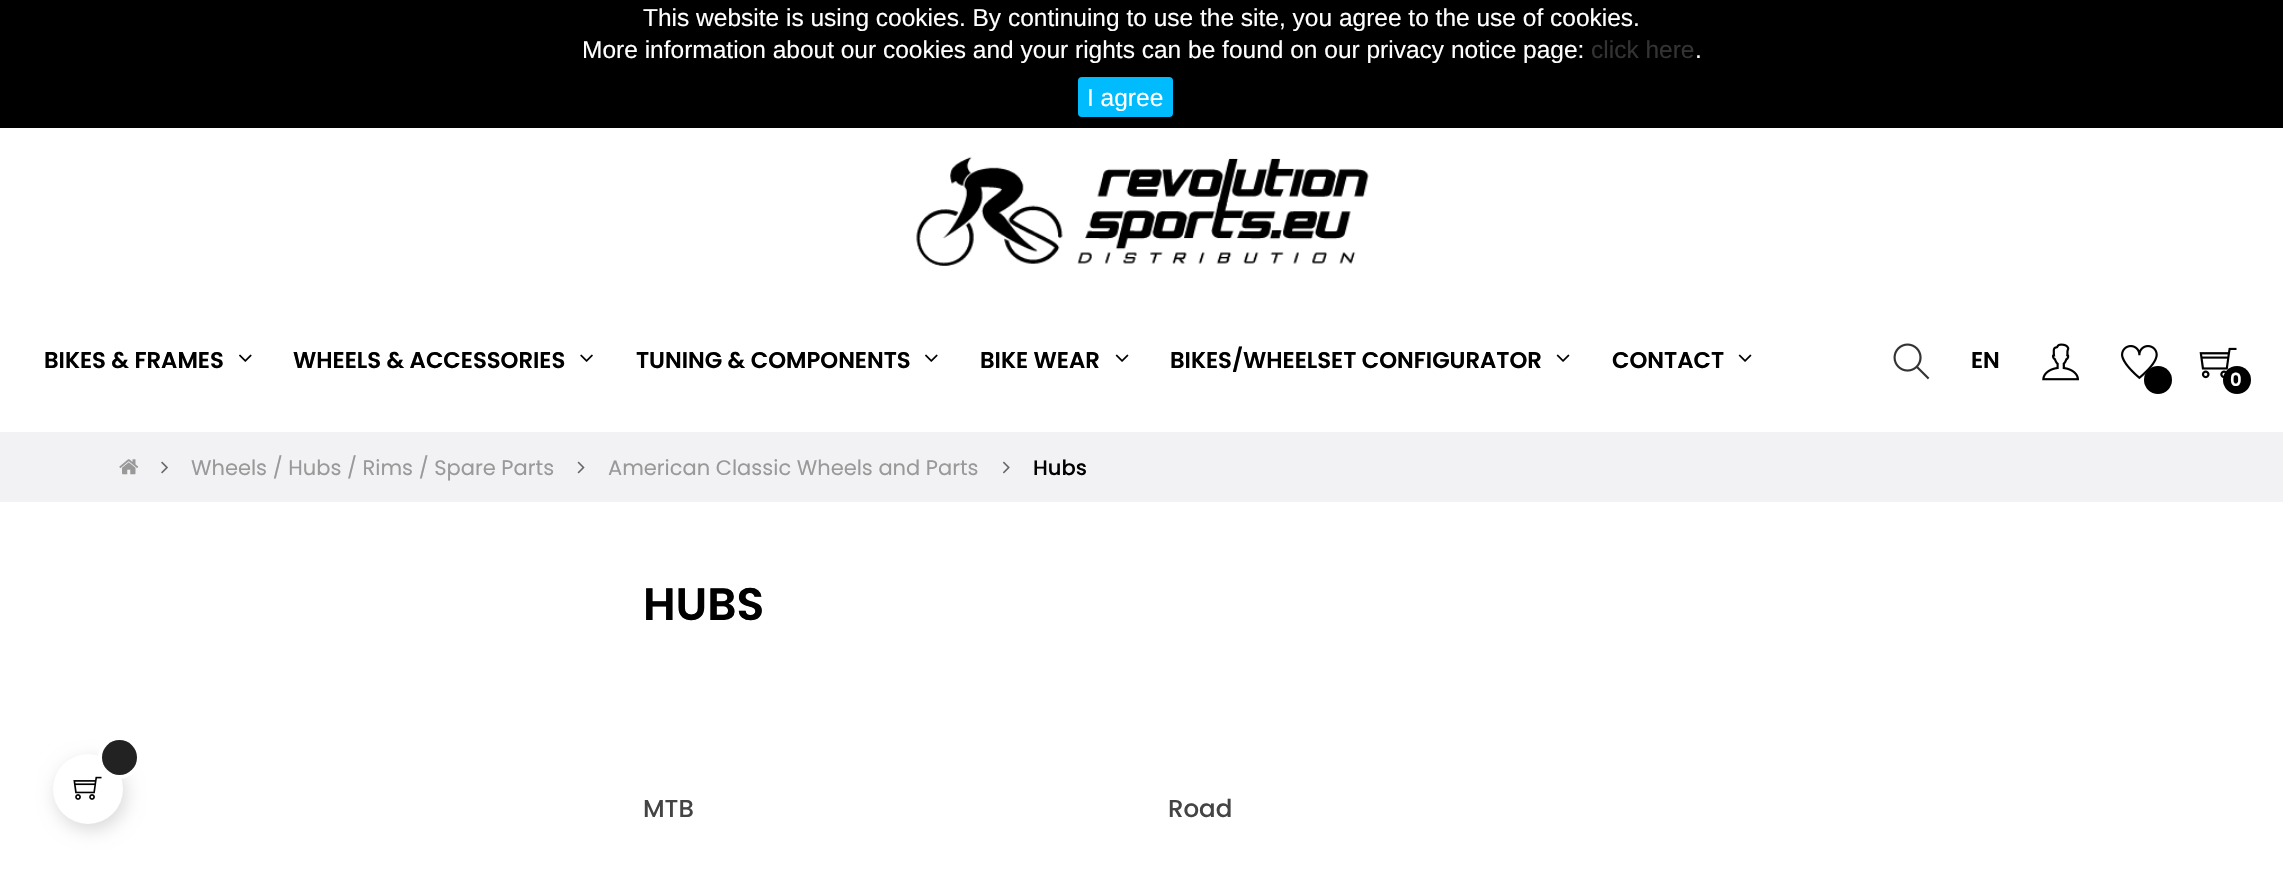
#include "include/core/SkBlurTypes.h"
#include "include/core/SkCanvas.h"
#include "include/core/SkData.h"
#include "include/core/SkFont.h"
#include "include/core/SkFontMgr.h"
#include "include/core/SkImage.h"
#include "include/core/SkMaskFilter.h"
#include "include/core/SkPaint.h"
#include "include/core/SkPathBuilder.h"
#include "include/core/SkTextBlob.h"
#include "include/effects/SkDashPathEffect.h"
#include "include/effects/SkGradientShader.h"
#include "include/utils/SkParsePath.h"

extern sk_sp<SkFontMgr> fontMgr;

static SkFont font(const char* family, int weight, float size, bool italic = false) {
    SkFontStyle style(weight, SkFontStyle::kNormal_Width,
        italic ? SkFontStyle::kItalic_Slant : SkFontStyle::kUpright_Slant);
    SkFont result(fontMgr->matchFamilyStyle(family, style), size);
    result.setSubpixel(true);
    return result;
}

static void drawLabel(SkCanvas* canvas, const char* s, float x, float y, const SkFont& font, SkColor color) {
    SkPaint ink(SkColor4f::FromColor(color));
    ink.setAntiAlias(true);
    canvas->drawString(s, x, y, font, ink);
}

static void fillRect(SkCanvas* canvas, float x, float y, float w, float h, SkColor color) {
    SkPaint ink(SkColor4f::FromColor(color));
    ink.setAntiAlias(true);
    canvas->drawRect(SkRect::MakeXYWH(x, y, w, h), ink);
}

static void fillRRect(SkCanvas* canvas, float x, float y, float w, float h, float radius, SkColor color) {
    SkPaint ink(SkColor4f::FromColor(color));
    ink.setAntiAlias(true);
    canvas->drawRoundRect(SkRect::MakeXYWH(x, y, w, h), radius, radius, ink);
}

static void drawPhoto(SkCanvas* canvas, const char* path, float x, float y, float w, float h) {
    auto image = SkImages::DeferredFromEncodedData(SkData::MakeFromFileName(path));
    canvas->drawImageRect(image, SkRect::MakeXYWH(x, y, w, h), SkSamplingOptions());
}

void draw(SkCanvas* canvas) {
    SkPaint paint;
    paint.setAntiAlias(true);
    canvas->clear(0xFFFFFFFF);
    fillRect(canvas, 0, 0, 2283, 128, 0xFF000000);
    SkFont font1 = font("Liberation Sans", 400, 24.5f);
    drawLabel(canvas, "This website is using cookies. By continuing to use the site, you agree to the use of cookies.", 643, 26, font1, 0xFFFFFFFF);
    drawLabel(canvas, "More information about our cookies and your rights can be found on our privacy notice page:", 582, 58, font1, 0xFFFFFFFF);
    drawLabel(canvas, "click here", 1591, 58, font1, 0xFF333333);
    drawLabel(canvas, ".", 1695, 58, font1, 0xFFFFFFFF);
    fillRRect(canvas, 1078, 77, 95, 40, 4, 0xFF00BCFF);
    drawLabel(canvas, "I agree", 1087, 106, font1, 0xFFFFFFFF);
    drawPhoto(canvas, "assets/img1.png", 916, 156, 453, 110);
    SkFont font2 = font("Poppins", 600, 22.75f);
    drawLabel(canvas, "BIKES & FRAMES", 44, 368, font2, 0xFF000000);
    drawPhoto(canvas, "assets/img2.png", 239, 354, 13, 8);
    drawLabel(canvas, "WHEELS & ACCESSORIES", 293, 368, font2, 0xFF000000);
    drawPhoto(canvas, "assets/img3.png", 580, 354, 13, 8);
    drawLabel(canvas, "TUNING & COMPONENTS", 636, 368, font2, 0xFF000000);
    drawPhoto(canvas, "assets/img2.png", 925, 354, 13, 8);
    drawLabel(canvas, "BIKE WEAR", 980, 368, font2, 0xFF000000);
    drawPhoto(canvas, "assets/img4.png", 1115, 354, 14, 8);
    drawLabel(canvas, "BIKES/WHEELSET CONFIGURATOR", 1170, 368, font2, 0xFF000000);
    drawPhoto(canvas, "assets/img4.png", 1556, 354, 14, 8);
    drawLabel(canvas, "CONTACT", 1612, 368, font2, 0xFF000000);
    drawPhoto(canvas, "assets/img4.png", 1738, 354, 14, 8);
    drawPhoto(canvas, "assets/img5.png", 1893, 343, 37, 37);
    drawLabel(canvas, "EN", 1971, 368, font2, 0xFF000000);
    drawPhoto(canvas, "assets/img6.png", 2042, 343, 37, 38);
    drawPhoto(canvas, "assets/img7.png", 2121, 345, 37, 35);
    paint.setColor(0xFF000000);
    canvas->drawCircle(2158, 380, 14, paint);
    drawPhoto(canvas, "assets/img8.png", 2199, 347, 38, 32);
    canvas->drawCircle(2237, 380, 14, paint);
    SkFont font3 = font("Poppins", 600, 18);
    drawLabel(canvas, "0", 2230, 386, font3, 0xFFFFFFFF);
    fillRect(canvas, 0, 432, 2283, 70, 0xFFF2F2F4);
    drawPhoto(canvas, "assets/img9.png", 119, 459, 20, 16);
    drawPhoto(canvas, "assets/img10.png", 161, 461, 7, 13);
    SkFont font4 = font("Poppins", 400, 21);
    drawLabel(canvas, "Wheels / Hubs / Rims / Spare Parts", 191, 475, font4, 0xFF999999);
    drawPhoto(canvas, "assets/img11.png", 577, 461, 8, 13);
    drawLabel(canvas, "American Classic Wheels and Parts", 608, 475, font4, 0xFF999999);
    drawPhoto(canvas, "assets/img12.png", 1003, 461, 7, 13);
    SkFont font5 = font("Poppins", 500, 21);
    drawLabel(canvas, "Hubs", 1033, 475, font5, 0xFF000000);
    SkFont font6 = font("Poppins", 600, 45.5f);
    drawLabel(canvas, "HUBS", 643, 620, font6, 0xFF000000);
    SkFont font7 = font("Poppins", 500, 24.5f);
    drawLabel(canvas, "MTB", 643, 817, font7, 0xFF444444);
    drawLabel(canvas, "Road", 1168, 817, font7, 0xFF444444);
    paint.setColor(0x26000000);
    paint.setMaskFilter(SkMaskFilter::MakeBlur(kNormal_SkBlurStyle, 9));
    canvas->drawRoundRect(SkRect::MakeXYWH(56, 760, 70, 70), 35, 35, paint);
    paint.setMaskFilter(nullptr);
    paint.setColor(0xFFFFFFFF);
    canvas->drawCircle(88, 789, 35, paint);
    drawPhoto(canvas, "assets/img13.png", 73, 776, 29, 24);
    paint.setStroke(true);
    paint.setStrokeWidth(4);
    canvas->drawCircle(119, 758, 19, paint);
    paint.setStroke(false);
    paint.setColor(0xFF222222);
    canvas->drawCircle(119.5f, 757.5f, 17.5f, paint);
}
